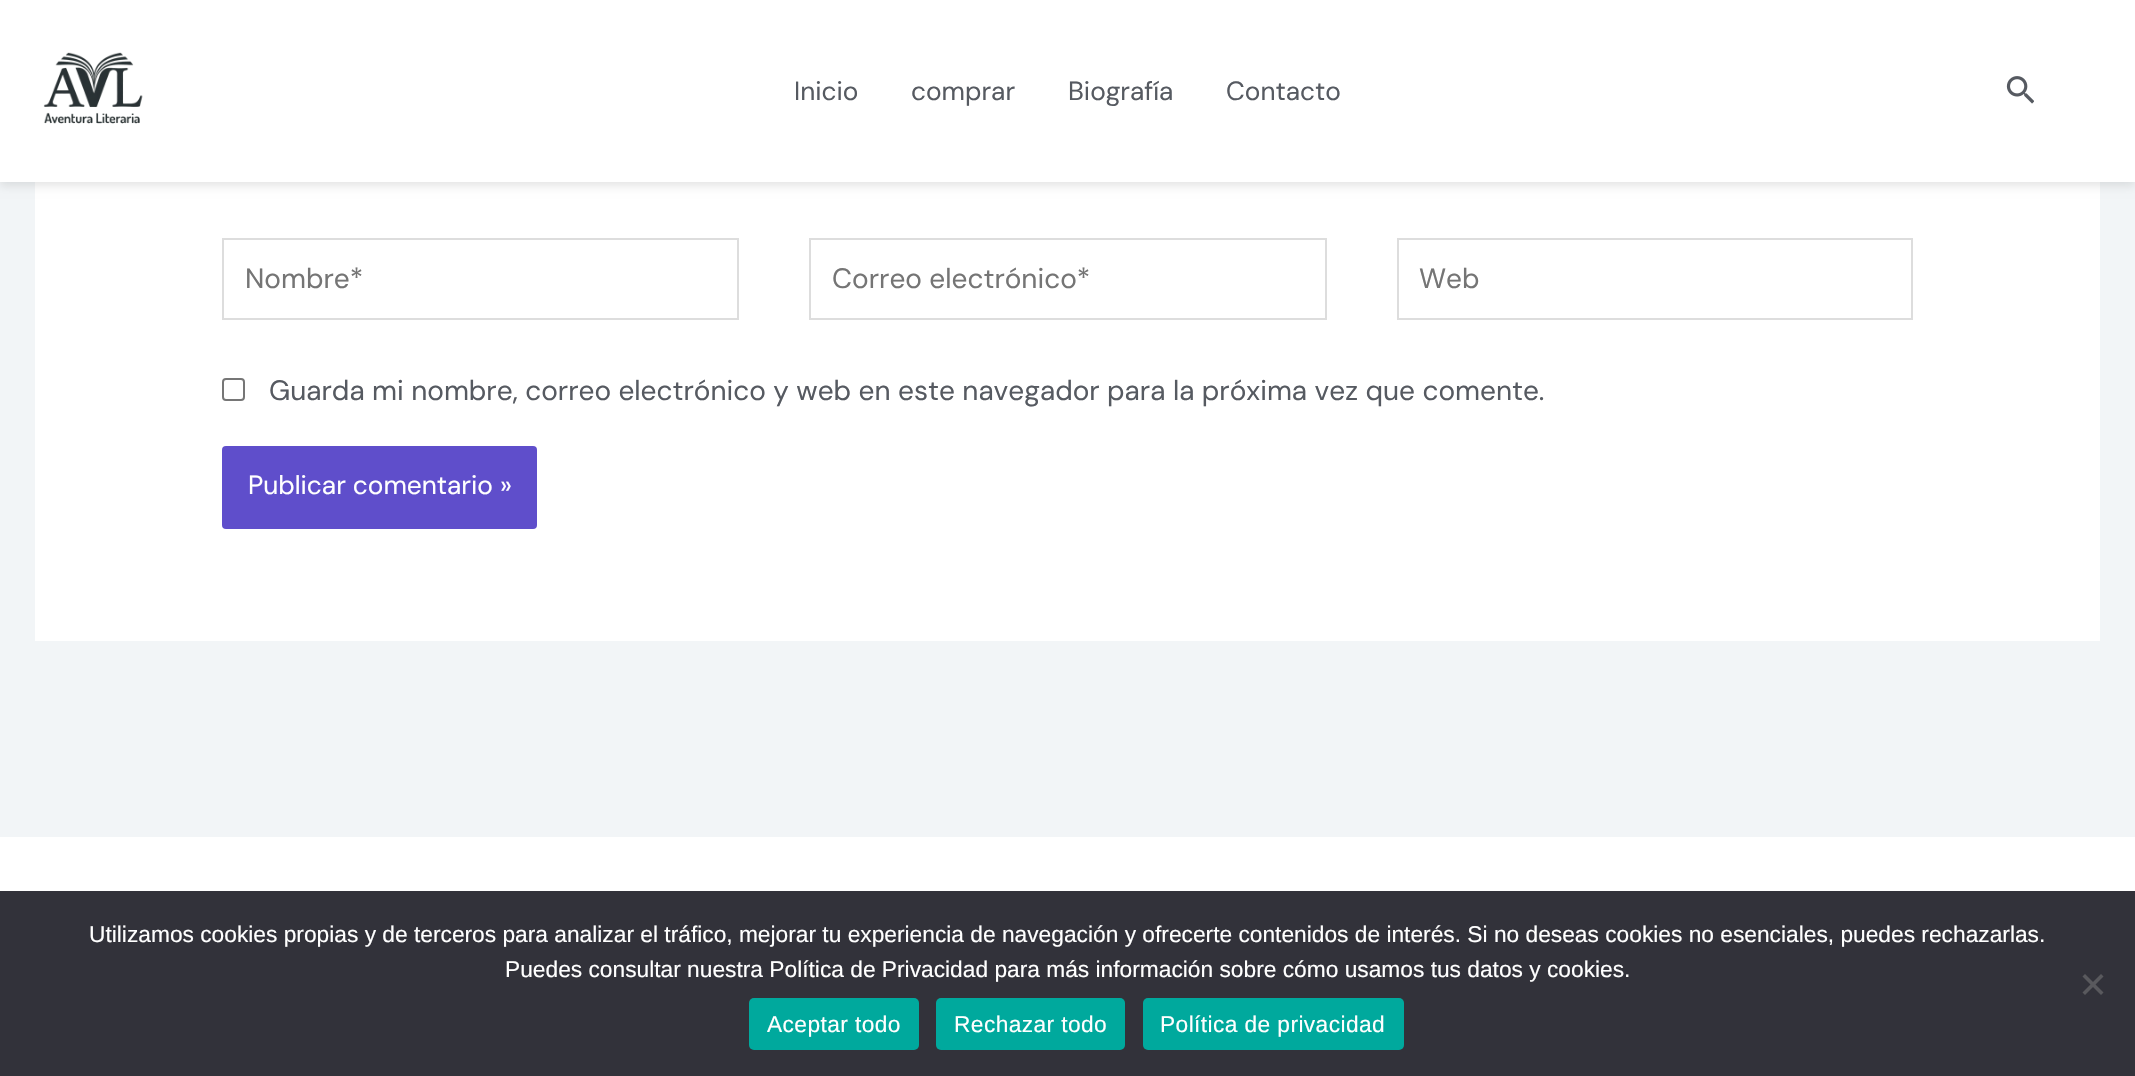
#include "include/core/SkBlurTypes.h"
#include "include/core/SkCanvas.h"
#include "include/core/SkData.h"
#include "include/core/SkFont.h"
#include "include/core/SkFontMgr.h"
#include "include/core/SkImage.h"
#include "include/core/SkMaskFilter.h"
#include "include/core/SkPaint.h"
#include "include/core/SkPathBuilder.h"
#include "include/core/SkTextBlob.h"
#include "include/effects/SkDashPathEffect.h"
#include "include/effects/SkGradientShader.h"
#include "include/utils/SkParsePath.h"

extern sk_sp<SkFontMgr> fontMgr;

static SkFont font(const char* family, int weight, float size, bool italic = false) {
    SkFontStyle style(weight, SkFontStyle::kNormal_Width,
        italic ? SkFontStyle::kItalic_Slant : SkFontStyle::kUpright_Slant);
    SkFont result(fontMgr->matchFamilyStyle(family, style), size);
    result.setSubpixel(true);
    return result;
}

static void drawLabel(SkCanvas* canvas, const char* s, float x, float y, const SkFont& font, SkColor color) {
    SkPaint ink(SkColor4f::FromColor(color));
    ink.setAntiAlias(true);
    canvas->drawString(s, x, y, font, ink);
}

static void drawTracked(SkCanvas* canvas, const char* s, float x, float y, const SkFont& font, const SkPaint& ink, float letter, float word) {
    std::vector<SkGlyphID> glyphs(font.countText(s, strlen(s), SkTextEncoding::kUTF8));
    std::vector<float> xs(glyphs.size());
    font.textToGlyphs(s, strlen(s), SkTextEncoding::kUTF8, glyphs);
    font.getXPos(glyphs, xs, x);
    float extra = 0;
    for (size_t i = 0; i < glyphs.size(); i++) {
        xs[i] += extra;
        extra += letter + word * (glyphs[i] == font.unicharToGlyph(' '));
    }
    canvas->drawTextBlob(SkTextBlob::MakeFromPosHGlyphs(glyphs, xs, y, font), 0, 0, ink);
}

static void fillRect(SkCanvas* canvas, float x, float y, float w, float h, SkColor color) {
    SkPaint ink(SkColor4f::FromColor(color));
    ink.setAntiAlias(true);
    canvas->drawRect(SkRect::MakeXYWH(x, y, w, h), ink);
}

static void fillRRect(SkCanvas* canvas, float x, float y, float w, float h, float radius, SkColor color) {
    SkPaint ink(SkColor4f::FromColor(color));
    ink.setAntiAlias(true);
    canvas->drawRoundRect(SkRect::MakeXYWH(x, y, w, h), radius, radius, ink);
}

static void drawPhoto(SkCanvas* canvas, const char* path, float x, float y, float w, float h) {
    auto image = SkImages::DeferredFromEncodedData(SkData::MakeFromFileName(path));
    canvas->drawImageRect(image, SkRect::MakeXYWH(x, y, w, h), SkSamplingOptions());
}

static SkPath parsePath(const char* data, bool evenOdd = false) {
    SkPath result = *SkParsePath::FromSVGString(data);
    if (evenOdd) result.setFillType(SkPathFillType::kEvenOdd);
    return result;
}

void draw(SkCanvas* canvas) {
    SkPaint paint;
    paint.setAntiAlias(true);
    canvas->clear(0xFFF2F5F7);
    fillRect(canvas, 35, 182, 2065, 459, 0xFFFFFFFF);
    paint.setColor(0x1A000000);
    paint.setMaskFilter(SkMaskFilter::MakeBlur(kNormal_SkBlurStyle, 4.5f));
    canvas->drawRect(SkRect::MakeXYWH(0, 4, 2135, 182), paint);
    paint.setMaskFilter(nullptr);
    fillRect(canvas, 0, 0, 2135, 182, 0xFFFFFFFF);
    drawPhoto(canvas, "assets/img1.png", 43, 52, 100, 72);
    SkFont font1 = font("DM Sans", 400, 26.25f);
    drawLabel(canvas, "Inicio", 794, 100, font1, 0xFF565A61);
    drawLabel(canvas, "comprar", 911, 100, font1, 0xFF565A61);
    drawLabel(canvas, "Biografía", 1068, 100, font1, 0xFF565A61);
    drawLabel(canvas, "Contacto", 1226, 100, font1, 0xFF565A61);
    drawPhoto(canvas, "assets/img2.png", 2006, 76, 28, 28);
    paint.setStroke(true);
    paint.setStrokeWidth(2);
    paint.setColor(0xFFDDDDDD);
    canvas->drawRect(SkRect::MakeXYWH(223, 239, 515, 80), paint);
    SkFont font2 = font("DM Sans", 400, 28);
    drawLabel(canvas, "Nombre*", 245, 288, font2, 0xFF757575);
    canvas->drawRect(SkRect::MakeXYWH(810, 239, 516, 80), paint);
    drawLabel(canvas, "Correo electrónico*", 832, 288, font2, 0xFF757575);
    canvas->drawRect(SkRect::MakeXYWH(1398, 239, 514, 80), paint);
    drawLabel(canvas, "Web", 1419, 288, font2, 0xFF757575);
    paint.setColor(0xFF767676);
    canvas->drawRoundRect(SkRect::MakeXYWH(223, 379, 21, 21), 3, 3, paint);
    drawLabel(canvas, "Guarda mi nombre, correo electrónico y web en este navegador para la próxima vez que comente.", 269, 400, font2, 0xFF565A61);
    fillRRect(canvas, 222, 446, 315, 83, 4, 0xFF5F4ECB);
    drawLabel(canvas, "Publicar comentario »", 248, 494, font1, 0xFFFFFFFF);
    fillRect(canvas, 0, 837, 2135, 54, 0xFFFFFFFF);
    fillRect(canvas, 0, 891, 2135, 185, 0xFF32323A);
    SkFont font3 = font("Liberation Sans", 400, 22.75f);
    drawLabel(canvas, "Utilizamos cookies propias y de terceros para analizar el tráfico, mejorar tu experiencia de navegación y ofrecerte contenidos de interés. Si no deseas cookies no esenciales, puedes rechazarlas.", 89, 942, font3, 0xFFFFFFFF);
    drawLabel(canvas, "Puedes consultar nuestra Política de Privacidad para más información sobre cómo usamos tus datos y cookies.", 505, 977, font3, 0xFFFFFFFF);
    paint.setStroke(false);
    paint.setColor(0xFF59595D);
    canvas->drawPath(parsePath("M2101 974L2103.5 976.5L2085 995L2082.5 992.5Z"), paint);
    canvas->drawPath(parsePath("M2082.5 976.5L2085 974L2103.5 992.5L2101 995Z"), paint);
    fillRRect(canvas, 749, 998, 170, 52, 5, 0xFF00A99D);
    paint.setColor(0xFFFFFFFF);
    drawTracked(canvas, "Aceptar todo", 767, 1032, font3, paint, 0.4f, 0);
    fillRRect(canvas, 936, 998, 189, 52, 5, 0xFF00A99D);
    drawTracked(canvas, "Rechazar todo", 954, 1032, font3, paint, 0.4f, 0);
    fillRRect(canvas, 1143, 998, 261, 52, 5, 0xFF00A99D);
    drawTracked(canvas, "Política de privacidad", 1160, 1032, font3, paint, 0.4f, 0);
}
